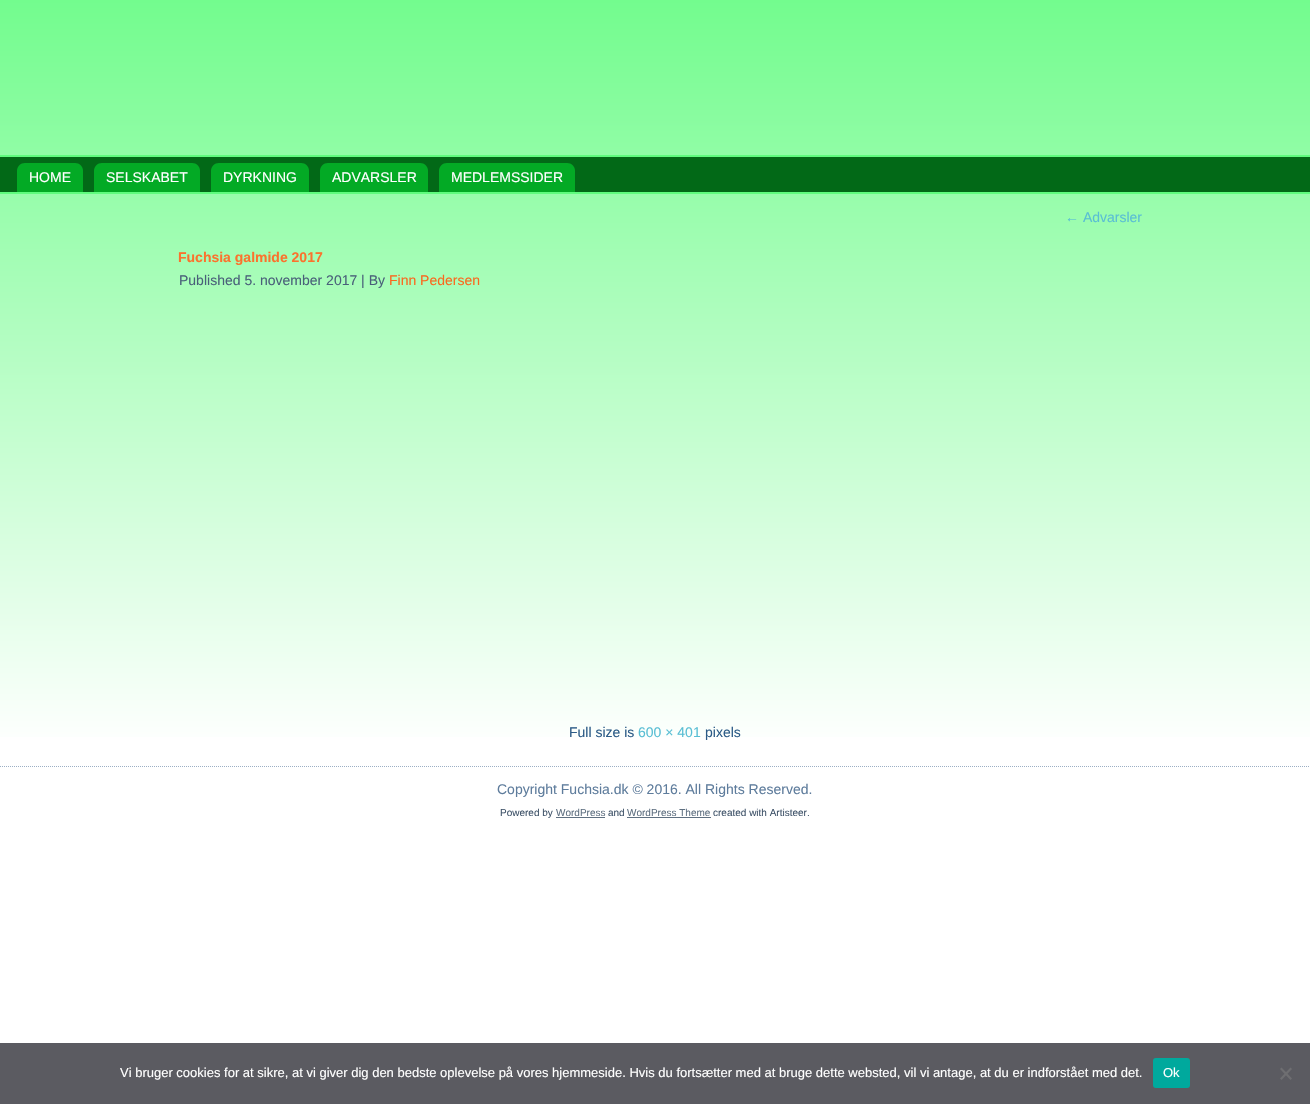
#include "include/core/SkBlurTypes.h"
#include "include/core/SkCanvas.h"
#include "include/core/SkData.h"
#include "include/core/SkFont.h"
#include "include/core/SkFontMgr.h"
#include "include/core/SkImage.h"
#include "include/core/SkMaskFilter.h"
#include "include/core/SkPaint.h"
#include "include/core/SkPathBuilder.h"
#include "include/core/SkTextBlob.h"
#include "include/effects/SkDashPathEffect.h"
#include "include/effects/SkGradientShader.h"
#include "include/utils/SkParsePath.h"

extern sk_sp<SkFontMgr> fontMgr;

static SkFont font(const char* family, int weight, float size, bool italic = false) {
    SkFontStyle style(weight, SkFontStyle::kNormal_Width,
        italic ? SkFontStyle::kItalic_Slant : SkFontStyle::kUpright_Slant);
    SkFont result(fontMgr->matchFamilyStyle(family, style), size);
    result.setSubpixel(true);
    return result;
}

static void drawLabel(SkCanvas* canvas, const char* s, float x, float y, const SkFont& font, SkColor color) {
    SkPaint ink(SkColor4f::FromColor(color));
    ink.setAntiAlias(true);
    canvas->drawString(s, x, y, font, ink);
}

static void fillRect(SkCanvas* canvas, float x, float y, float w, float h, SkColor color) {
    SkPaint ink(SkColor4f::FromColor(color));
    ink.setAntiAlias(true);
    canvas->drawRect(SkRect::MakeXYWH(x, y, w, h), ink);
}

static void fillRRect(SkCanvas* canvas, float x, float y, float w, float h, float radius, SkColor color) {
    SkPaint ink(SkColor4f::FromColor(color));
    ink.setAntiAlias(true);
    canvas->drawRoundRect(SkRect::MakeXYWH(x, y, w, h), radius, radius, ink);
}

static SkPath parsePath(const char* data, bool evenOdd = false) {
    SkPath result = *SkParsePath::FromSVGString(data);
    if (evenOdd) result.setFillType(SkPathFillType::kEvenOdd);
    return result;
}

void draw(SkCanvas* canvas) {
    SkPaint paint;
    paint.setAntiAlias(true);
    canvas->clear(0xFFFFFFFF);
    {
        const SkColor colors[] = {0xFF73FC8E, 0xFFFFFFFF};
        const float stops[] = {0, 0.68f};
        const SkPoint ends[] = {{655, 0}, {655, 1104}};
        paint.setShader(SkGradientShader::MakeLinear(ends, colors, stops, 2, SkTileMode::kClamp));
        paint.setAlpha(255);
    }
    canvas->drawRect(SkRect::MakeXYWH(0, 0, 1310, 737), paint);
    fillRect(canvas, 0, 157, 1310, 35, 0xFF026917);
    fillRect(canvas, 0, 155, 1310, 2, 0xFF5FFC7E);
    fillRect(canvas, 0, 192, 1310, 2, 0xFF5FFC7E);
    paint.setShader(nullptr);
    paint.setColor(0xFF03AA25);
    canvas->drawPath(parsePath("M25 163H75C79.5 163 83 166.5 83 171V192H17V171C17 166.5 20.5 163 25 163Z"), paint);
    SkFont font1 = font("Liberation Sans", 400, 14);
    drawLabel(canvas, "HOME", 29, 182, font1, 0xFFFFFFFF);
    canvas->drawPath(parsePath("M102 163H192C196.5 163 200 166.5 200 171V192H94V171C94 166.5 97.5 163 102 163Z"), paint);
    drawLabel(canvas, "SELSKABET", 106, 182, font1, 0xFFFFFFFF);
    canvas->drawPath(parsePath("M219 163H301C305.5 163 309 166.5 309 171V192H211V171C211 166.5 214.5 163 219 163Z"), paint);
    drawLabel(canvas, "DYRKNING", 223, 182, font1, 0xFFFFFFFF);
    canvas->drawPath(parsePath("M328 163H420C424.5 163 428 166.5 428 171V192H320V171C320 166.5 323.5 163 328 163Z"), paint);
    drawLabel(canvas, "ADVARSLER", 332, 182, font1, 0xFFFFFFFF);
    canvas->drawPath(parsePath("M447 163H567C571.5 163 575 166.5 575 171V192H439V171C439 166.5 442.5 163 447 163Z"), paint);
    drawLabel(canvas, "MEDLEMSSIDER", 451, 182, font1, 0xFFFFFFFF);
    drawLabel(canvas, "← Advarsler", 1065, 222, font1, 0xFF59BED4);
    SkFont font2 = font("Liberation Sans", 700, 14);
    drawLabel(canvas, "Fuchsia galmide 2017", 178, 262, font2, 0xFFFB722D);
    drawLabel(canvas, "Published 5. november 2017 | By", 179, 285, font1, 0xFF496079);
    drawLabel(canvas, "Finn Pedersen", 389, 285, font1, 0xFFFA681E);
    drawLabel(canvas, "Full size is", 569, 737, font1, 0xFF2C5B87);
    drawLabel(canvas, "600 × 401", 638, 737, font1, 0xFF59BED4);
    drawLabel(canvas, "pixels", 705, 737, font1, 0xFF2C5B87);
    paint.setStroke(true);
    paint.setStrokeWidth(1);
    paint.setColor(0xFF9CAFC4);
    paint.setPathEffect(SkDashPathEffect::Make({{1, 1}}, 0));
    canvas->drawPath(parsePath("M0 766.5H1310"), paint);
    paint.setPathEffect(nullptr);
    drawLabel(canvas, "Copyright Fuchsia.dk © 2016. All Rights Reserved.", 497, 794, font1, 0xFF5E7C9C);
    SkFont font3 = font("Liberation Sans", 400, 10);
    drawLabel(canvas, "Powered by", 500, 816, font3, 0xFF3F5369);
    drawLabel(canvas, "WordPress", 556, 816, font3, 0xFF5F7081);
    fillRect(canvas, 556, 817, 49, 1, 0xFF5F7081);
    drawLabel(canvas, "and", 608, 816, font3, 0xFF3F5369);
    drawLabel(canvas, "WordPress Theme", 627, 816, font3, 0xFF5F7081);
    fillRect(canvas, 627, 817, 84, 1, 0xFF5F7081);
    drawLabel(canvas, "created with Artisteer.", 713, 816, font3, 0xFF3F5369);
    fillRect(canvas, 0, 1043, 1310, 61, 0xFF5B5B61);
    SkFont font4 = font("Liberation Sans", 400, 13);
    drawLabel(canvas, "Vi bruger cookies for at sikre, at vi giver dig den bedste oplevelse på vores hjemmeside. Hvis du fortsætter med at bruge dette websted, vil vi antage, at du er indforstået med det.", 120, 1077, font4, 0xFFFFFFFF);
    fillRRect(canvas, 1153, 1058, 37, 30, 3, 0xFF00A99D);
    drawLabel(canvas, "Ok", 1163, 1077, font4, 0xFFFFFFFF);
    paint.setStroke(false);
    paint.setColor(0xFF6E6E71);
    canvas->drawPath(parsePath("M1290.5 1067.5L1292 1069L1281.5 1080L1280 1078.5Z"), paint);
    canvas->drawPath(parsePath("M1280 1069L1281.5 1067.5L1292 1078.5L1290.5 1080Z"), paint);
}
